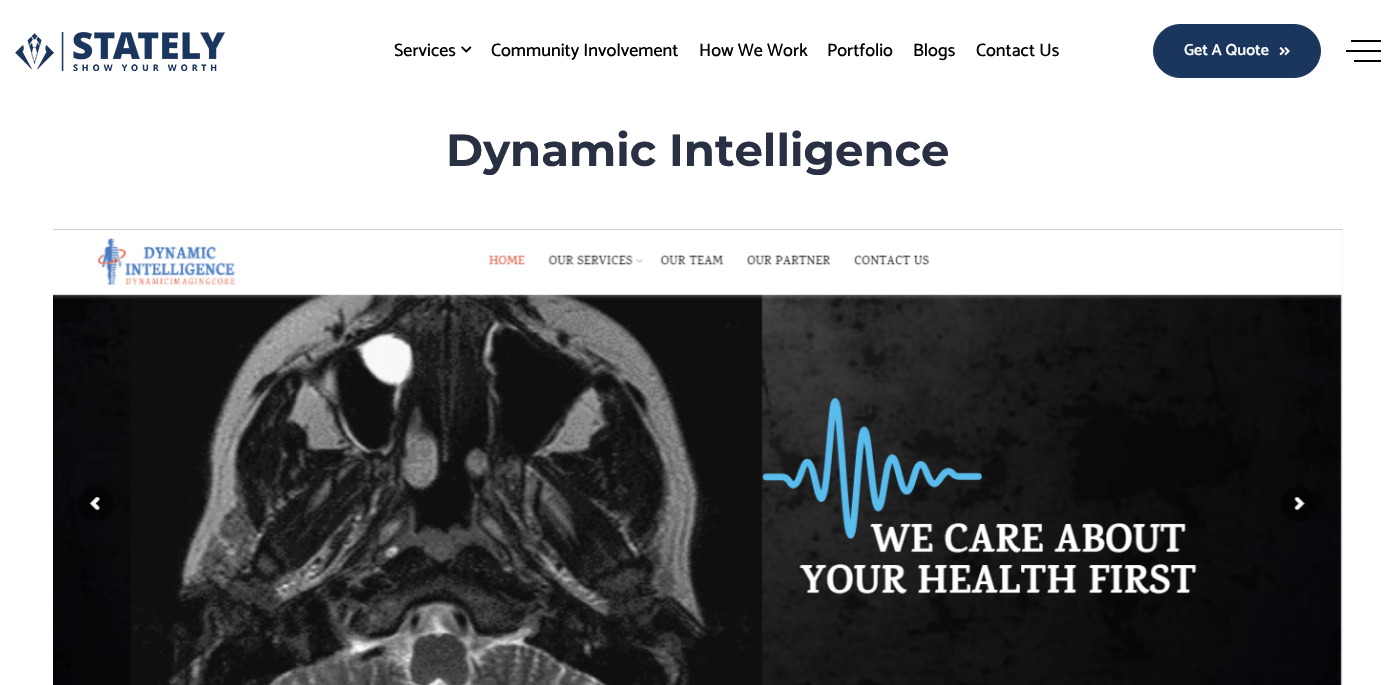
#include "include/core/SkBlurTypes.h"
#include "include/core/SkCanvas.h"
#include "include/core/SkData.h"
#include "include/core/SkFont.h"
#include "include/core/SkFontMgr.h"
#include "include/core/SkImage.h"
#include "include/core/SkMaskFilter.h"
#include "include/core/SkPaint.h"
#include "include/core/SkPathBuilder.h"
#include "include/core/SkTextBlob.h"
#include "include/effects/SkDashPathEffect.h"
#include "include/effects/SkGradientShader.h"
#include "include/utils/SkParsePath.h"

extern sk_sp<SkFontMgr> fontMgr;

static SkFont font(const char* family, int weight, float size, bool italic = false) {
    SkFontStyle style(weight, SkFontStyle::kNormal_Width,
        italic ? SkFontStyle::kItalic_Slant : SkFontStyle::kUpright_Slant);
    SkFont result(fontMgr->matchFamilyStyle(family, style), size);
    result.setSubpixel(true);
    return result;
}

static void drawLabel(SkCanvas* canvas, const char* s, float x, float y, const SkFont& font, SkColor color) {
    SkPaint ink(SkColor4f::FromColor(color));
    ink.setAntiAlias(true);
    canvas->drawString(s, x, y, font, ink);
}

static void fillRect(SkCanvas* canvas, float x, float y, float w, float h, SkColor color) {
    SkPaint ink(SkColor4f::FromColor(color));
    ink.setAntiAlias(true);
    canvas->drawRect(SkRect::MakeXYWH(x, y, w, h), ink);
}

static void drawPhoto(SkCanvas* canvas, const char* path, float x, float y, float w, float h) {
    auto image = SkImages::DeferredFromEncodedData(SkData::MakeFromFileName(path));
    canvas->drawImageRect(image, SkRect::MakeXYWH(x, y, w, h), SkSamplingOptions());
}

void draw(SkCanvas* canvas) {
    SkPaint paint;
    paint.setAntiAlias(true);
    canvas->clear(0xFFFFFFFF);
    drawPhoto(canvas, "assets/img1.png", 15, 32, 210, 39);
    SkFont font1 = font("Catamaran", 500, 18);
    drawLabel(canvas, "Services", 394, 56, font1, 0xFF000000);
    drawPhoto(canvas, "assets/img2.png", 461, 46, 11, 7);
    drawLabel(canvas, "Community Involvement", 491, 56, font1, 0xFF000000);
    drawLabel(canvas, "How We Work", 699, 56, font1, 0xFF000000);
    drawLabel(canvas, "Portfolio", 827, 56, font1, 0xFF000000);
    drawLabel(canvas, "Blogs", 913, 56, font1, 0xFF000000);
    drawLabel(canvas, "Contact Us", 976, 56, font1, 0xFF000000);
    paint.setColor(0xFF1B365D);
    canvas->drawRoundRect(SkRect::MakeXYWH(1153.5f, 24.5f, 167, 53), 26.5f, 26.5f, paint);
    paint.setStroke(true);
    paint.setStrokeWidth(1);
    canvas->drawRoundRect(SkRect::MakeXYWH(1153.5f, 24.5f, 167, 53), 26.5f, 26.5f, paint);
    SkFont font2 = font("Catamaran", 600, 16);
    drawLabel(canvas, "Get A Quote", 1184, 55, font2, 0xFFFFFFFF);
    drawPhoto(canvas, "assets/img3.png", 1279, 47, 11, 9);
    fillRect(canvas, 1351, 40, 30, 2, 0xFF000000);
    fillRect(canvas, 1346, 50, 35, 2, 0xFF000000);
    fillRect(canvas, 1354, 60, 27, 2, 0xFF000000);
    SkFont font3 = font("Montserrat", 700, 45);
    drawLabel(canvas, "Dynamic Intelligence", 446, 166, font3, 0xFF293043);
    drawPhoto(canvas, "assets/img4.png", 53, 229, 1290, 456);
}
